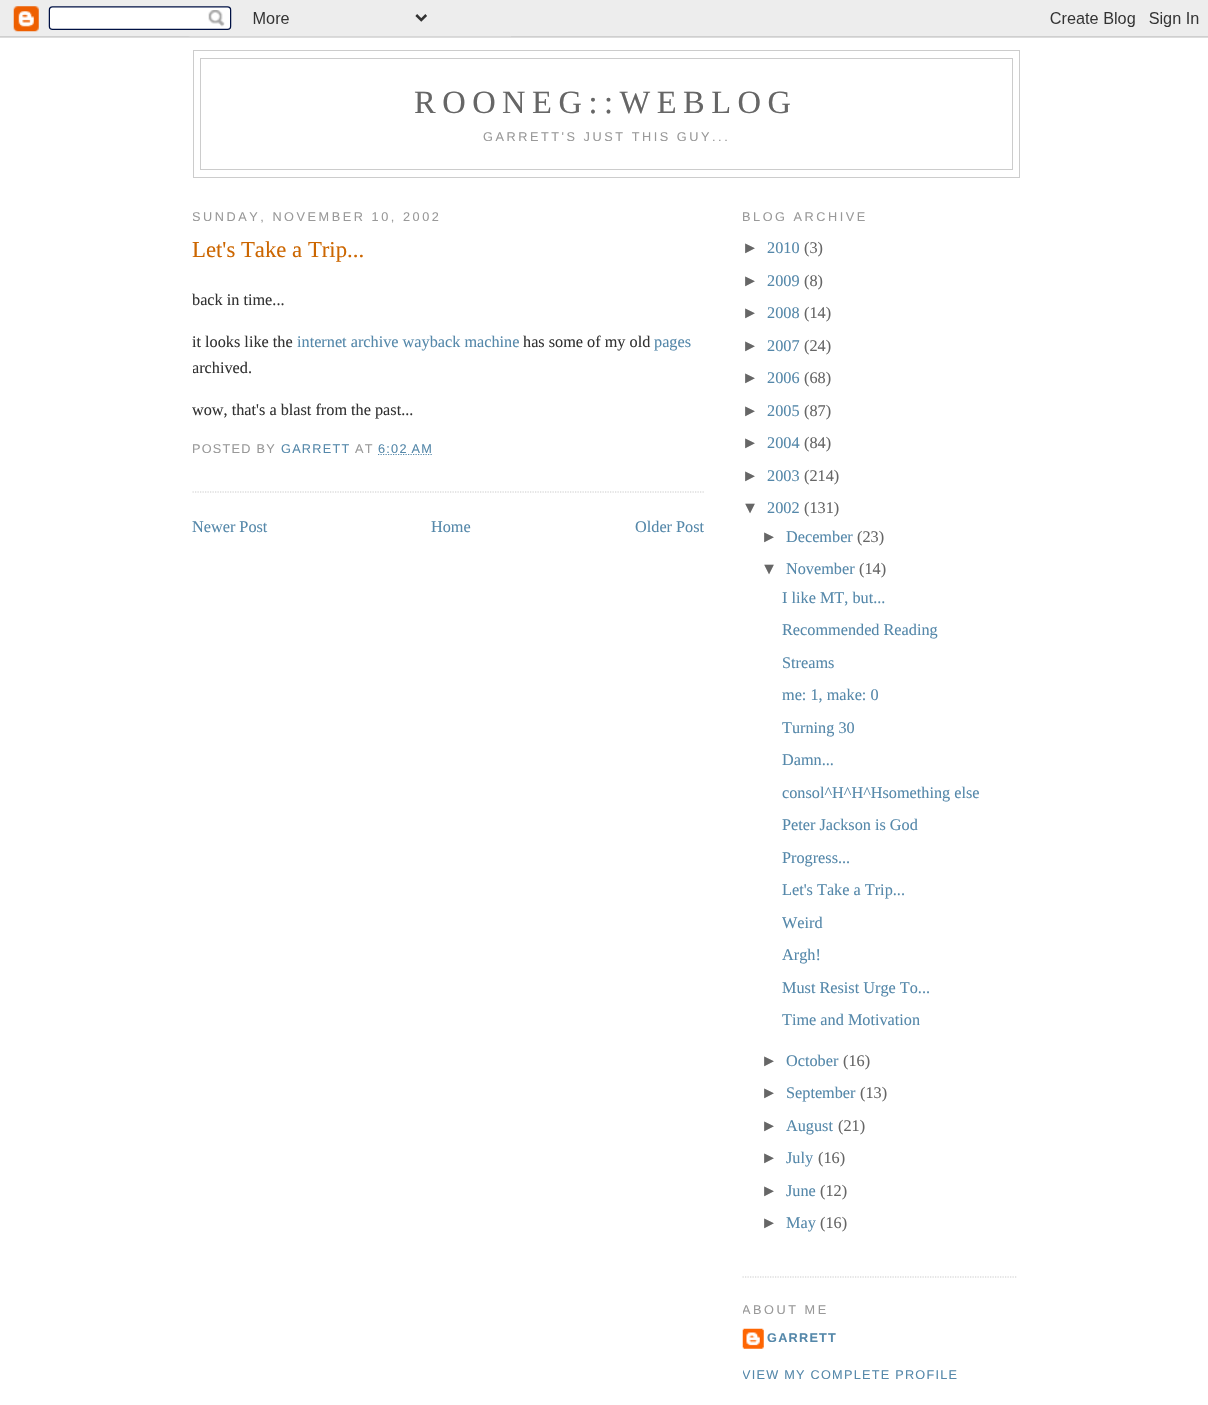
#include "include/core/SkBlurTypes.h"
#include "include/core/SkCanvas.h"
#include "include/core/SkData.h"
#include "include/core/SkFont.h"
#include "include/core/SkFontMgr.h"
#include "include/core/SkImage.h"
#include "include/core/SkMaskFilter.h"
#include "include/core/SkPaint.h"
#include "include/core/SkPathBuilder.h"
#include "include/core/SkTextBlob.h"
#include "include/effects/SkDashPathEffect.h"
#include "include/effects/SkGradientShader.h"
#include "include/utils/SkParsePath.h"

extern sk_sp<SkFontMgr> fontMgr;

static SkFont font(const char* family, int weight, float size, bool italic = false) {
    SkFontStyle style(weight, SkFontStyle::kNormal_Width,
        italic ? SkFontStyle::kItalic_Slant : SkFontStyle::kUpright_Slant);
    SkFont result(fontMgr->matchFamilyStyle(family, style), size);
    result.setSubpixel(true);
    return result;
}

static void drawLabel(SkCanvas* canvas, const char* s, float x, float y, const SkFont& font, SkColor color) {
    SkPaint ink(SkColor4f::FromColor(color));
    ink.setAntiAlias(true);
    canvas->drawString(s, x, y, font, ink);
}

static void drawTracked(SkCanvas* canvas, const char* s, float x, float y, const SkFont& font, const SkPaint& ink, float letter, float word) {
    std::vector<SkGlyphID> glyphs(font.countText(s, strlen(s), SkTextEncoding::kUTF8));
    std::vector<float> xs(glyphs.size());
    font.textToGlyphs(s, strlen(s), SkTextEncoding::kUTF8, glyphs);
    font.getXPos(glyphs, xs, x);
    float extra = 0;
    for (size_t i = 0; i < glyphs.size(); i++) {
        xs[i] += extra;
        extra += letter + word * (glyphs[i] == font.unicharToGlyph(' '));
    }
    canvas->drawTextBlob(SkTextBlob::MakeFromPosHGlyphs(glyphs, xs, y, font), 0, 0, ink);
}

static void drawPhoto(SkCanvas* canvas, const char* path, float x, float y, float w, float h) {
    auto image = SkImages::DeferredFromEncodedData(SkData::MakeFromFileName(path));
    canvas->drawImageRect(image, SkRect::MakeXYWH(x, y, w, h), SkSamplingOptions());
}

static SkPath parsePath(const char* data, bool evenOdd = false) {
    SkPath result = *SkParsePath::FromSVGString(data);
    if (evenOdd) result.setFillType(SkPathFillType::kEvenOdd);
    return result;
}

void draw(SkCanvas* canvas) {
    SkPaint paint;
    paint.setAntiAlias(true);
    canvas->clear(0xFFFFFFFF);
    drawPhoto(canvas, "assets/img1.png", 0, 0, 1208, 38);
    paint.setStroke(true);
    paint.setStrokeWidth(1);
    paint.setColor(0xFFCCCCCC);
    canvas->drawRect(SkRect::MakeXYWH(193.5f, 50.5f, 826, 127), paint);
    canvas->drawRect(SkRect::MakeXYWH(200.5f, 58.5f, 812, 111), paint);
    SkFont font1 = font("Liberation Serif", 400, 32.5f);
    paint.setStroke(false);
    paint.setColor(0xFF666666);
    drawTracked(canvas, "ROONEG::WEBLOG", 414, 113, font1, paint, 6.5f, 0);
    SkFont font2 = font("Liberation Sans", 400, 12.7f);
    paint.setColor(0xFF999999);
    drawTracked(canvas, "GARRETT'S JUST THIS GUY...", 483, 141, font2, paint, 2.55f, 0);
    canvas->save();
    canvas->clipRect(SkRect::MakeXYWH(193, 190, 512, 413));
    drawTracked(canvas, "SUNDAY, NOVEMBER 10, 2002", 192, 221, font2, paint, 2.55f, 0);
    canvas->restore();
    paint.setStroke(true);
    paint.setStrokeWidth(1.2f);
    paint.setColor(0xFFCCCCCC);
    paint.setPathEffect(SkDashPathEffect::Make({{1.25f, 1.25f}}, 0));
    canvas->drawPath(parsePath("M192.5 492H705"), paint);
    paint.setPathEffect(nullptr);
    SkFont font3 = font("Liberation Serif", 400, 22.75f);
    drawLabel(canvas, "Let's Take a Trip...", 192, 257, font3, 0xFFCC6600);
    SkFont font4 = font("Liberation Serif", 400, 16.25f);
    drawLabel(canvas, "back in time...", 192, 305, font4, 0xFF333333);
    drawLabel(canvas, "it looks like the", 192, 347, font4, 0xFF333333);
    drawLabel(canvas, "internet archive wayback machine", 297, 347, font4, 0xFF5588AA);
    drawLabel(canvas, "has some of my old", 523, 347, font4, 0xFF333333);
    drawLabel(canvas, "pages", 654, 347, font4, 0xFF5588AA);
    canvas->save();
    canvas->clipRect(SkRect::MakeXYWH(193, 190, 512, 413));
    drawLabel(canvas, "archived.", 192, 373, font4, 0xFF333333);
    canvas->restore();
    drawLabel(canvas, "wow, that's a blast from the past...", 192, 415, font4, 0xFF333333);
    canvas->save();
    canvas->clipRect(SkRect::MakeXYWH(193, 190, 512, 413));
    paint.setStroke(false);
    paint.setColor(0xFF999999);
    drawTracked(canvas, "POSTED BY", 192, 453, font2, paint, 1.25f, 0);
    canvas->restore();
    paint.setColor(0xFF5588AA);
    drawTracked(canvas, "GARRETT", 281, 453, font2, paint, 1.25f, 0);
    paint.setColor(0xFF999999);
    drawTracked(canvas, "AT", 355, 453, font2, paint, 1.25f, 0);
    paint.setStroke(true);
    paint.setColor(0xFF5588AA);
    paint.setPathEffect(SkDashPathEffect::Make({{1.25f, 1.25f}}, 0));
    canvas->drawPath(parsePath("M378 454.5H433"), paint);
    paint.setPathEffect(nullptr);
    paint.setStroke(false);
    drawTracked(canvas, "6:02 AM", 378, 453, font2, paint, 1.25f, 0);
    drawLabel(canvas, "Newer Post", 192, 532, font4, 0xFF5588AA);
    drawLabel(canvas, "Home", 431, 532, font4, 0xFF5588AA);
    drawLabel(canvas, "Older Post", 635, 532, font4, 0xFF5588AA);
    paint.setStroke(true);
    paint.setColor(0xFFCCCCCC);
    paint.setPathEffect(SkDashPathEffect::Make({{1.25f, 1.25f}}, 0));
    canvas->drawPath(parsePath("M742.5 1277H1017.5"), paint);
    paint.setPathEffect(nullptr);
    canvas->save();
    canvas->clipRect(SkRect::MakeXYWH(743, 190, 275, 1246));
    paint.setStroke(false);
    paint.setColor(0xFF999999);
    drawTracked(canvas, "BLOG ARCHIVE", 742, 221, font2, paint, 2.55f, 0);
    canvas->restore();
    SkFont font5 = font("Liberation Sans", 400, 16.25f);
    drawLabel(canvas, "►", 742, 253, font5, 0xFF666666);
    drawLabel(canvas, "2010", 767, 253, font4, 0xFF5588AA);
    drawLabel(canvas, "(3)", 804, 253, font4, 0xFF666666);
    drawLabel(canvas, "►", 742, 286, font5, 0xFF666666);
    drawLabel(canvas, "2009", 767, 286, font4, 0xFF5588AA);
    drawLabel(canvas, "(8)", 804, 286, font4, 0xFF666666);
    drawLabel(canvas, "►", 742, 318, font5, 0xFF666666);
    drawLabel(canvas, "2008", 767, 318, font4, 0xFF5588AA);
    drawLabel(canvas, "(14)", 804, 318, font4, 0xFF666666);
    drawLabel(canvas, "►", 742, 351, font5, 0xFF666666);
    drawLabel(canvas, "2007", 767, 351, font4, 0xFF5588AA);
    drawLabel(canvas, "(24)", 804, 351, font4, 0xFF666666);
    drawLabel(canvas, "►", 742, 383, font5, 0xFF666666);
    drawLabel(canvas, "2006", 767, 383, font4, 0xFF5588AA);
    drawLabel(canvas, "(68)", 804, 383, font4, 0xFF666666);
    drawLabel(canvas, "►", 742, 416, font5, 0xFF666666);
    drawLabel(canvas, "2005", 767, 416, font4, 0xFF5588AA);
    drawLabel(canvas, "(87)", 804, 416, font4, 0xFF666666);
    drawLabel(canvas, "►", 742, 448, font5, 0xFF666666);
    drawLabel(canvas, "2004", 767, 448, font4, 0xFF5588AA);
    drawLabel(canvas, "(84)", 804, 448, font4, 0xFF666666);
    drawLabel(canvas, "►", 742, 481, font5, 0xFF666666);
    drawLabel(canvas, "2003", 767, 481, font4, 0xFF5588AA);
    drawLabel(canvas, "(214)", 804, 481, font4, 0xFF666666);
    drawLabel(canvas, "▼", 742, 513, font5, 0xFF666666);
    drawLabel(canvas, "2002", 767, 513, font4, 0xFF5588AA);
    drawLabel(canvas, "(131)", 804, 513, font4, 0xFF666666);
    drawLabel(canvas, "►", 761, 542, font5, 0xFF666666);
    drawLabel(canvas, "December", 786, 542, font4, 0xFF5588AA);
    drawLabel(canvas, "(23)", 857, 542, font4, 0xFF666666);
    drawLabel(canvas, "▼", 761, 574, font5, 0xFF666666);
    drawLabel(canvas, "November", 786, 574, font4, 0xFF5588AA);
    drawLabel(canvas, "(14)", 859, 574, font4, 0xFF666666);
    drawLabel(canvas, "I like MT, but...", 782, 603, font4, 0xFF5588AA);
    drawLabel(canvas, "Recommended Reading", 782, 635, font4, 0xFF5588AA);
    drawLabel(canvas, "Streams", 782, 668, font4, 0xFF5588AA);
    drawLabel(canvas, "me: 1, make: 0", 782, 700, font4, 0xFF5588AA);
    drawLabel(canvas, "Turning 30", 782, 733, font4, 0xFF5588AA);
    drawLabel(canvas, "Damn...", 782, 765, font4, 0xFF5588AA);
    drawLabel(canvas, "consol^H^H^Hsomething else", 782, 798, font4, 0xFF5588AA);
    drawLabel(canvas, "Peter Jackson is God", 782, 830, font4, 0xFF5588AA);
    drawLabel(canvas, "Progress...", 782, 863, font4, 0xFF5588AA);
    drawLabel(canvas, "Let's Take a Trip...", 782, 895, font4, 0xFF5588AA);
    drawLabel(canvas, "Weird", 782, 928, font4, 0xFF5588AA);
    drawLabel(canvas, "Argh!", 782, 960, font4, 0xFF5588AA);
    drawLabel(canvas, "Must Resist Urge To...", 782, 993, font4, 0xFF5588AA);
    drawLabel(canvas, "Time and Motivation", 782, 1025, font4, 0xFF5588AA);
    drawLabel(canvas, "►", 761, 1066, font5, 0xFF666666);
    drawLabel(canvas, "October", 786, 1066, font4, 0xFF5588AA);
    drawLabel(canvas, "(16)", 843, 1066, font4, 0xFF666666);
    drawLabel(canvas, "►", 761, 1098, font5, 0xFF666666);
    drawLabel(canvas, "September", 786, 1098, font4, 0xFF5588AA);
    drawLabel(canvas, "(13)", 860, 1098, font4, 0xFF666666);
    drawLabel(canvas, "►", 761, 1131, font5, 0xFF666666);
    drawLabel(canvas, "August", 786, 1131, font4, 0xFF5588AA);
    drawLabel(canvas, "(21)", 838, 1131, font4, 0xFF666666);
    drawLabel(canvas, "►", 761, 1163, font5, 0xFF666666);
    drawLabel(canvas, "July", 786, 1163, font4, 0xFF5588AA);
    drawLabel(canvas, "(16)", 818, 1163, font4, 0xFF666666);
    drawLabel(canvas, "►", 761, 1196, font5, 0xFF666666);
    drawLabel(canvas, "June", 786, 1196, font4, 0xFF5588AA);
    drawLabel(canvas, "(12)", 820, 1196, font4, 0xFF666666);
    drawLabel(canvas, "►", 761, 1228, font5, 0xFF666666);
    drawLabel(canvas, "May", 786, 1228, font4, 0xFF5588AA);
    drawLabel(canvas, "(16)", 820, 1228, font4, 0xFF666666);
    canvas->save();
    canvas->clipRect(SkRect::MakeXYWH(743, 190, 275, 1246));
    drawTracked(canvas, "ABOUT ME", 742, 1314, font2, paint, 2.55f, 0);
    canvas->restore();
    drawPhoto(canvas, "assets/img2.png", 742, 1328, 22, 21);
    SkFont font6 = font("Liberation Sans", 700, 12.7f);
    paint.setColor(0xFF5588AA);
    drawTracked(canvas, "GARRETT", 767, 1342, font6, paint, 1.25f, 0);
    canvas->save();
    canvas->clipRect(SkRect::MakeXYWH(743, 190, 275, 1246));
    drawTracked(canvas, "VIEW MY COMPLETE PROFILE", 742, 1379, font2, paint, 1.25f, 0);
    canvas->restore();
}
